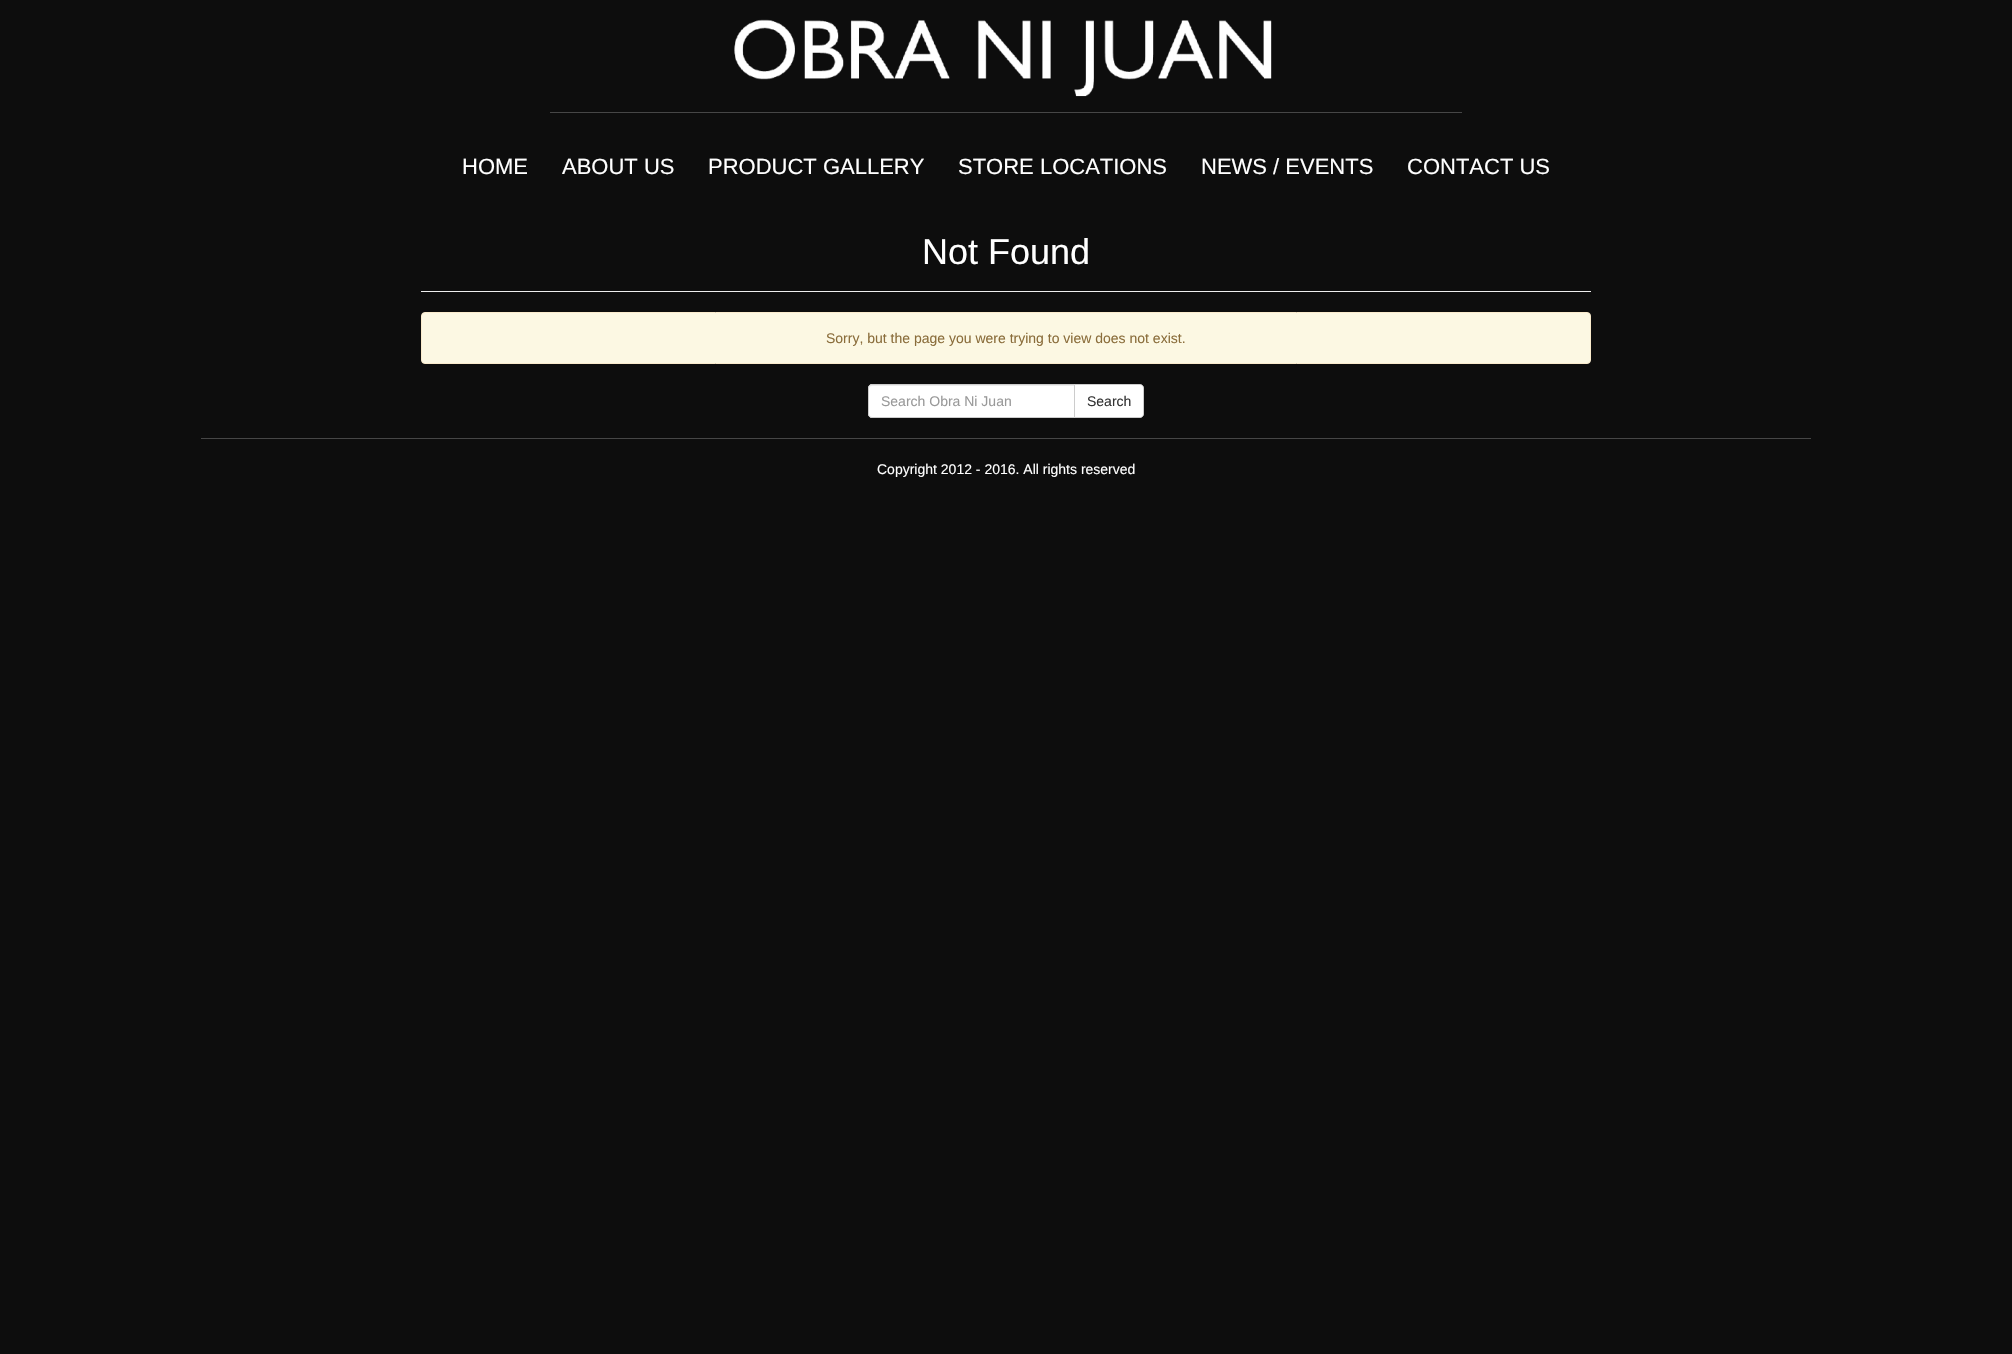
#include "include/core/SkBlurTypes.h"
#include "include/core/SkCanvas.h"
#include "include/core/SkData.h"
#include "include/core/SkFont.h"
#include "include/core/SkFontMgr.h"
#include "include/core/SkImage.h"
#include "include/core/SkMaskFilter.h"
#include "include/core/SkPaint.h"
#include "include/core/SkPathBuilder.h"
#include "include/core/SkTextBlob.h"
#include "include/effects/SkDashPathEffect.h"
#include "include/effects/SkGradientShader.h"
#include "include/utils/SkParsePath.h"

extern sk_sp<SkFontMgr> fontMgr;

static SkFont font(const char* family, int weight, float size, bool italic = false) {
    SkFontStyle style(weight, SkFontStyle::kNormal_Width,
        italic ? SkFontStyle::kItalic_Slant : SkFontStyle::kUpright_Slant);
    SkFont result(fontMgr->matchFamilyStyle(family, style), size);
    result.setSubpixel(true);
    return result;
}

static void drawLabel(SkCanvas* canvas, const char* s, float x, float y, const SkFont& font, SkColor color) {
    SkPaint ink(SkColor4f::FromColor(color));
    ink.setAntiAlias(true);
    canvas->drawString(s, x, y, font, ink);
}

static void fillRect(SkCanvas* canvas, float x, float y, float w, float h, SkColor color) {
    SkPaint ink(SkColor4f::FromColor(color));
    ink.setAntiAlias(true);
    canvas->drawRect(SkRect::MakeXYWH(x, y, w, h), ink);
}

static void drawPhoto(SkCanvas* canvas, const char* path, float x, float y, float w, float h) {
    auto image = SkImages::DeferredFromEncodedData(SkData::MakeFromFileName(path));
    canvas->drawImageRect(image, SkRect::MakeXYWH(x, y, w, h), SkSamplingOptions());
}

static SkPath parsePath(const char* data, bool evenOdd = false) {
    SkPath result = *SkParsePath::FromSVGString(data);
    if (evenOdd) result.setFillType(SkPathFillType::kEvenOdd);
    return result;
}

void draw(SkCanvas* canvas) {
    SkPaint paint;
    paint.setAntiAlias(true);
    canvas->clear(0xFF0D0D0D);
    fillRect(canvas, 550, 112, 912, 1, 0xFF464646);
    drawPhoto(canvas, "assets/img1.png", 734, 19, 538, 78);
    SkFont font1 = font("Liberation Sans", 400, 22);
    drawLabel(canvas, "HOME", 462, 174, font1, 0xFFFFFFFF);
    drawLabel(canvas, "ABOUT US", 562, 174, font1, 0xFFFFFFFF);
    drawLabel(canvas, "PRODUCT GALLERY", 708, 174, font1, 0xFFFFFFFF);
    drawLabel(canvas, "STORE LOCATIONS", 958, 174, font1, 0xFFFFFFFF);
    drawLabel(canvas, "NEWS / EVENTS", 1201, 174, font1, 0xFFFFFFFF);
    drawLabel(canvas, "CONTACT US", 1407, 174, font1, 0xFFFFFFFF);
    fillRect(canvas, 421, 291, 1170, 1, 0xFFEEEEEE);
    SkFont font2 = font("Liberation Sans", 400, 36);
    drawLabel(canvas, "Not Found", 922, 264, font2, 0xFFFFFFFF);
    paint.setColor(0xFFFCF8E3);
    canvas->drawRoundRect(SkRect::MakeXYWH(421.5f, 312.5f, 1169, 51), 3.5f, 3.5f, paint);
    paint.setStroke(true);
    paint.setStrokeWidth(1);
    paint.setColor(0xFFFAEBCC);
    canvas->drawRoundRect(SkRect::MakeXYWH(421.5f, 312.5f, 1169, 51), 3.5f, 3.5f, paint);
    SkFont font3 = font("Liberation Sans", 400, 14);
    drawLabel(canvas, "Sorry, but the page you were trying to view does not exist.", 826, 343, font3, 0xFF8A6D3B);
    paint.setStroke(false);
    paint.setColor(0xFFFFFFFF);
    canvas->drawPath(parsePath("M872 384H1075V418H872C870 418 868 416 868 414V388C868 386 870 384 872 384Z"), paint);
    paint.setColor(0xFFECECEC);
    canvas->drawPath(parsePath("M872 386H1074V385H871C869 386 869 387 869 389C869 387 870 386 872 386Z"), paint);
    paint.setStroke(true);
    paint.setColor(0xFFCCCCCC);
    canvas->drawPath(parsePath("M872 384.5H1074.5V417.5H872C870 417.5 868.5 416 868.5 414V388C868.5 386 870 384.5 872 384.5Z"), paint);
    drawLabel(canvas, "Search Obra Ni Juan", 881, 406, font3, 0xFF999999);
    paint.setStroke(false);
    paint.setColor(0xFFFFFFFF);
    canvas->drawPath(parsePath("M1074.5 384.5H1140C1142 384.5 1143.5 386 1143.5 388V414C1143.5 416 1142 417.5 1140 417.5H1074.5Z"), paint);
    paint.setStroke(true);
    paint.setColor(0xFFCCCCCC);
    canvas->drawPath(parsePath("M1074.5 384.5H1140C1142 384.5 1143.5 386 1143.5 388V414C1143.5 416 1142 417.5 1140 417.5H1074.5Z"), paint);
    drawLabel(canvas, "Search", 1087, 406, font3, 0xFF333333);
    fillRect(canvas, 201, 438, 1610, 1, 0xFF464646);
    drawLabel(canvas, "Copyright 2012 - 2016. All rights reserved", 877, 474, font3, 0xFFFFFFFF);
}
